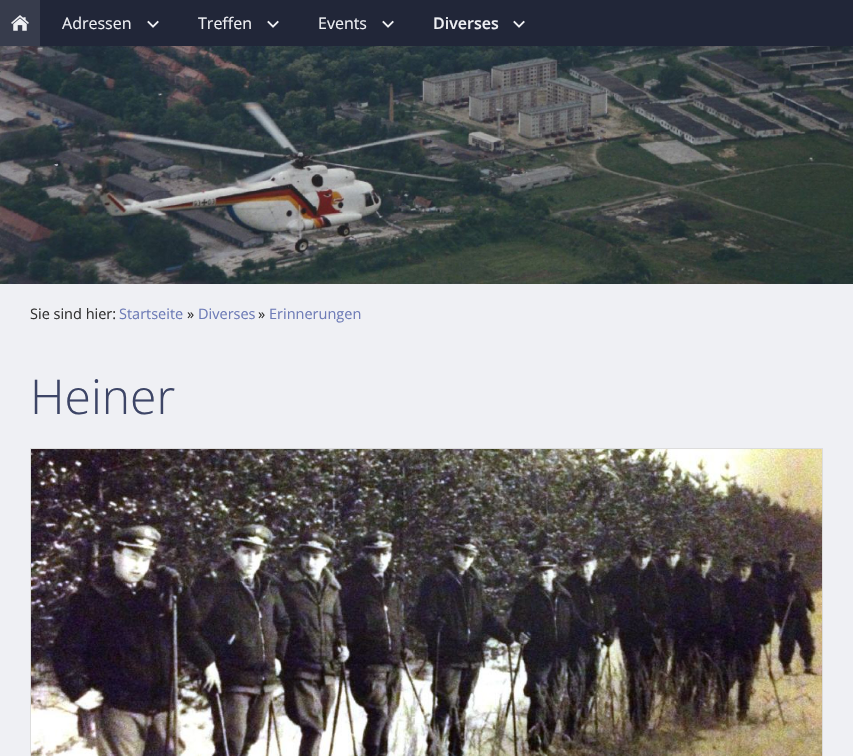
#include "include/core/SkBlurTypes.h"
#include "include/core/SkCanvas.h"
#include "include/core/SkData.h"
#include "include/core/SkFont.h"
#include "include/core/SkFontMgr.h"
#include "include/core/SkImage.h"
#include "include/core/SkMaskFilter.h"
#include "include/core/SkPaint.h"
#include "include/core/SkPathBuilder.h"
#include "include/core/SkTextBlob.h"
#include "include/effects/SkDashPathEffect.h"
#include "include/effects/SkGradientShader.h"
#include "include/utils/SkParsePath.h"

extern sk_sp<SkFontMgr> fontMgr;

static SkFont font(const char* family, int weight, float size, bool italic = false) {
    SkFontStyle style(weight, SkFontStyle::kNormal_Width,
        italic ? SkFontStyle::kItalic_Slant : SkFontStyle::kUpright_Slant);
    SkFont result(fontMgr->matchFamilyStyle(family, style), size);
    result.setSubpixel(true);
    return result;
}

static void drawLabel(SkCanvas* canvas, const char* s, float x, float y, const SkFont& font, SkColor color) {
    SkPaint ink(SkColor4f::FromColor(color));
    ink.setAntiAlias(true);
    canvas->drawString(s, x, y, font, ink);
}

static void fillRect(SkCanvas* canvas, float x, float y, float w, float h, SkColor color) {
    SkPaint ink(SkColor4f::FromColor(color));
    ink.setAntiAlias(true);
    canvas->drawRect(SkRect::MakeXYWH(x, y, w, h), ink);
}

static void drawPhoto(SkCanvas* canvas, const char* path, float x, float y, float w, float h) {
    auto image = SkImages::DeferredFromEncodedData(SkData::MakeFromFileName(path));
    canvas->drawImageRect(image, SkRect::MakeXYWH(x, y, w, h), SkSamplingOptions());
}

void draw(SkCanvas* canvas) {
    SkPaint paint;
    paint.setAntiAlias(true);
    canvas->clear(0xFF212638);
    fillRect(canvas, 0, 0, 40, 46, 0xFF373C4C);
    drawPhoto(canvas, "assets/img1.png", 11, 15, 18, 16);
    drawPhoto(canvas, "assets/img2.png", 147, 20, 12, 8);
    SkFont font1 = font("Open Sans", 400, 16);
    drawLabel(canvas, "Adressen", 62, 29, font1, 0xFFEFF0F4);
    drawPhoto(canvas, "assets/img2.png", 267, 20, 12, 8);
    drawLabel(canvas, "Treffen", 198, 29, font1, 0xFFEFF0F4);
    drawPhoto(canvas, "assets/img2.png", 382, 20, 12, 8);
    drawLabel(canvas, "Events", 318, 29, font1, 0xFFEFF0F4);
    drawPhoto(canvas, "assets/img2.png", 513, 20, 12, 8);
    SkFont font2 = font("Open Sans", 600, 16);
    drawLabel(canvas, "Diverses", 433, 29, font2, 0xFFEFF0F4);
    drawPhoto(canvas, "assets/img3.png", 0, 46, 853, 238);
    fillRect(canvas, 0, 284, 853, 472, 0xFFEFF0F4);
    SkFont font3 = font("Open Sans", 400, 14.5f);
    drawLabel(canvas, "Sie sind hier:", 30, 319, font3, 0xFF333333);
    drawLabel(canvas, "Startseite", 119, 319, font3, 0xFF6E7CB7);
    drawLabel(canvas, "»", 187, 319, font3, 0xFF333333);
    drawLabel(canvas, "Diverses", 198, 319, font3, 0xFF6E7CB7);
    drawLabel(canvas, "»", 258, 319, font3, 0xFF333333);
    drawLabel(canvas, "Erinnerungen", 269, 319, font3, 0xFF6E7CB7);
    SkFont font4 = font("Open Sans", 300, 48);
    drawLabel(canvas, "Heiner", 30, 414, font4, 0xFF3D4566);
    paint.setStroke(true);
    paint.setStrokeWidth(1);
    paint.setColor(0xFFDDDDDD);
    canvas->drawRect(SkRect::MakeXYWH(30.5f, 448.5f, 792, 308), paint);
    drawPhoto(canvas, "assets/img4.png", 31, 449, 791, 307);
}
